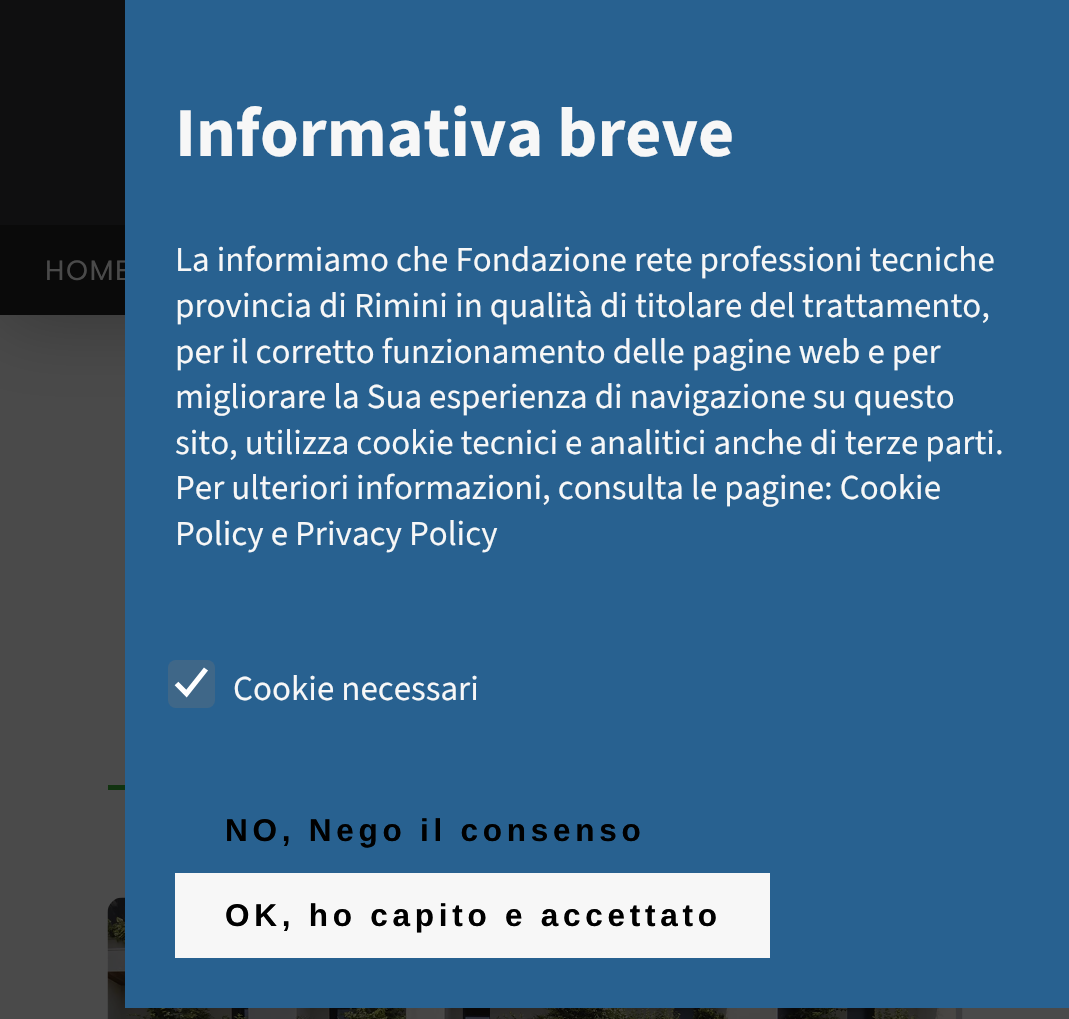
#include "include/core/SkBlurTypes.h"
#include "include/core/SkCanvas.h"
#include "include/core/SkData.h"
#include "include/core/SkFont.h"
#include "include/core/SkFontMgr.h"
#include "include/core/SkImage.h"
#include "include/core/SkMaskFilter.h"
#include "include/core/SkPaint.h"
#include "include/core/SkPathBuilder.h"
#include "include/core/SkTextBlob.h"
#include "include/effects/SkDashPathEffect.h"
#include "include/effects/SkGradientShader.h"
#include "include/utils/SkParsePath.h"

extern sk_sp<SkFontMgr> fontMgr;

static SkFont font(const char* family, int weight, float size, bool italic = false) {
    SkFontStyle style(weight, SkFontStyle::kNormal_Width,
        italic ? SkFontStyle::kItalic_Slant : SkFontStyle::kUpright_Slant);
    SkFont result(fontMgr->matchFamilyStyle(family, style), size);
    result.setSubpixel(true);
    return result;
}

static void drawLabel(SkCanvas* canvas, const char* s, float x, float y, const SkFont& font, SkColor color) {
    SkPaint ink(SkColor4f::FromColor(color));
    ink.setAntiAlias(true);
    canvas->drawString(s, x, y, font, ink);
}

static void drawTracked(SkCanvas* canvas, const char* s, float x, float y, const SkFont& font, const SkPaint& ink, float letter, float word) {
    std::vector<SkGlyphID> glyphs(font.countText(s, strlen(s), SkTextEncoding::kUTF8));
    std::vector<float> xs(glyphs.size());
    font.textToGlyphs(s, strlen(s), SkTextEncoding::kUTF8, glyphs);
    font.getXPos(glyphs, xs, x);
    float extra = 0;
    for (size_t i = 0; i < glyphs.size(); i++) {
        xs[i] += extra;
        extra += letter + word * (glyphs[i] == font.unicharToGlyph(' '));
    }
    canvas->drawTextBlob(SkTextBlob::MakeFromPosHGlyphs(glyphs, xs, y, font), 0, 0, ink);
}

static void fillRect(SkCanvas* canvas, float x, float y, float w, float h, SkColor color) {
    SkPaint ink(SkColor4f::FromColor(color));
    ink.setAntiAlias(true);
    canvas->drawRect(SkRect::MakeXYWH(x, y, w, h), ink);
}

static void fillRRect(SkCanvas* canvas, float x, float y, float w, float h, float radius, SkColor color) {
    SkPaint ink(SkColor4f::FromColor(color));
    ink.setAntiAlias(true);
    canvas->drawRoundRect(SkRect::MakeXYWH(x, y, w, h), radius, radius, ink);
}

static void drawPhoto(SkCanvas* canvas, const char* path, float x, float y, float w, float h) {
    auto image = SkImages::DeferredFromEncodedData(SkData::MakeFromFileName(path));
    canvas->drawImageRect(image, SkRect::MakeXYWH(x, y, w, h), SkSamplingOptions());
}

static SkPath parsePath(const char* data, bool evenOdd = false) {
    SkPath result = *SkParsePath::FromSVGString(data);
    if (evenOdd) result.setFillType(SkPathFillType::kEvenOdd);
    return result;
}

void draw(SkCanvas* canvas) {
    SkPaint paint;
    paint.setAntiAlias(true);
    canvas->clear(0xFF4A4A4A);
    paint.setColor(0x40000000);
    paint.setMaskFilter(SkMaskFilter::MakeBlur(kNormal_SkBlurStyle, 37.5f));
    canvas->drawRect(SkRect::MakeXYWH(0, 235, 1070, 90), paint);
    paint.setMaskFilter(nullptr);
    fillRect(canvas, 0, 0, 125, 225, 0xFF0F0F10);
    fillRect(canvas, 0, 225, 125, 90, 0xFF0A0A0A);
    SkFont font1 = font("Poppins", 400, 28);
    paint.setColor(0xFF4A4A4A);
    drawTracked(canvas, "HOME", 45, 280, font1, paint, 1.5f, 0);
    drawPhoto(canvas, "assets/img1.png", 107, 897, 856, 122);
    fillRect(canvas, 125, 0, 944, 1008, 0xFF286190);
    SkFont font2 = font("Source Sans 3", 700, 70);
    drawLabel(canvas, "Informativa breve", 175, 156, font2, 0xFFF7F7F7);
    SkFont font3 = font("Source Sans 3", 400, 35);
    drawLabel(canvas, "La informiamo che Fondazione rete professioni tecniche", 175, 271, font3, 0xFFF7F7F7);
    drawLabel(canvas, "provincia di Rimini in qualità di titolare del trattamento,", 175, 317, font3, 0xFFF7F7F7);
    drawLabel(canvas, "per il corretto funzionamento delle pagine web e per", 175, 363, font3, 0xFFF7F7F7);
    drawLabel(canvas, "migliorare la Sua esperienza di navigazione su questo", 175, 408, font3, 0xFFF7F7F7);
    drawLabel(canvas, "sito, utilizza cookie tecnici e analitici anche di terze parti.", 175, 454, font3, 0xFFF7F7F7);
    drawLabel(canvas, "Per ulteriori informazioni, consulta le pagine: Cookie", 175, 499, font3, 0xFFF7F7F7);
    drawLabel(canvas, "Policy e Privacy Policy", 175, 545, font3, 0xFFF7F7F7);
    fillRRect(canvas, 168, 660, 47, 48, 8, 0xFF3F6788);
    paint.setStroke(true);
    paint.setStrokeWidth(5.2f);
    paint.setColor(0xFFFFFFFF);
    canvas->drawPath(parsePath("M176.5 683.5L186.5 693.5L206 669"), paint);
    drawLabel(canvas, "Cookie necessari", 233, 700, font3, 0xFFF7F7F7);
    SkFont font4 = font("Liberation Sans", 700, 31.5f);
    paint.setStroke(false);
    paint.setColor(0xFF000000);
    drawTracked(canvas, "NO, Nego il consenso", 225, 841, font4, paint, 4.75f, 0);
    fillRect(canvas, 175, 873, 595, 85, 0xFFF7F7F7);
    drawTracked(canvas, "OK, ho capito e accettato", 225, 926, font4, paint, 4.75f, 0);
    fillRect(canvas, 108, 785, 17, 5, 0xFF113310);
}
